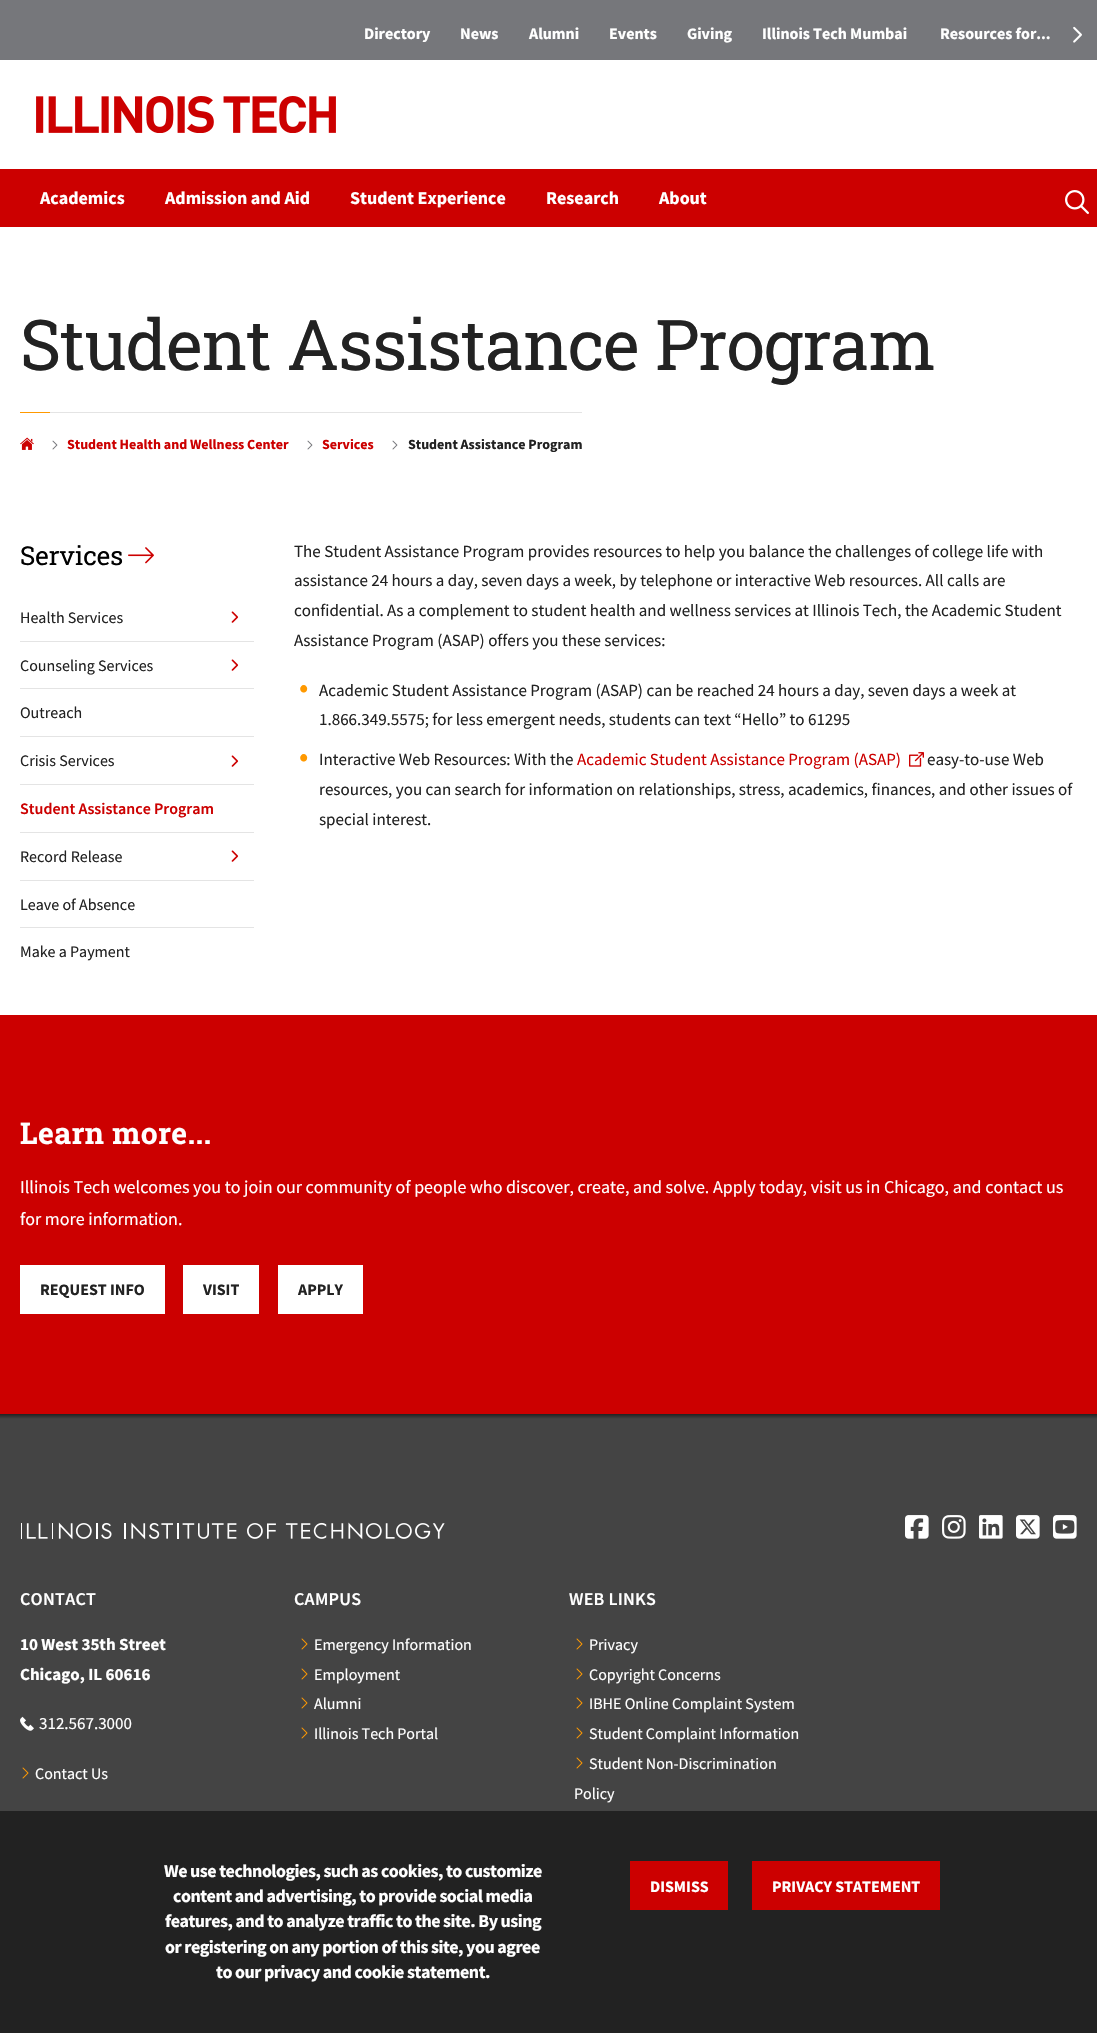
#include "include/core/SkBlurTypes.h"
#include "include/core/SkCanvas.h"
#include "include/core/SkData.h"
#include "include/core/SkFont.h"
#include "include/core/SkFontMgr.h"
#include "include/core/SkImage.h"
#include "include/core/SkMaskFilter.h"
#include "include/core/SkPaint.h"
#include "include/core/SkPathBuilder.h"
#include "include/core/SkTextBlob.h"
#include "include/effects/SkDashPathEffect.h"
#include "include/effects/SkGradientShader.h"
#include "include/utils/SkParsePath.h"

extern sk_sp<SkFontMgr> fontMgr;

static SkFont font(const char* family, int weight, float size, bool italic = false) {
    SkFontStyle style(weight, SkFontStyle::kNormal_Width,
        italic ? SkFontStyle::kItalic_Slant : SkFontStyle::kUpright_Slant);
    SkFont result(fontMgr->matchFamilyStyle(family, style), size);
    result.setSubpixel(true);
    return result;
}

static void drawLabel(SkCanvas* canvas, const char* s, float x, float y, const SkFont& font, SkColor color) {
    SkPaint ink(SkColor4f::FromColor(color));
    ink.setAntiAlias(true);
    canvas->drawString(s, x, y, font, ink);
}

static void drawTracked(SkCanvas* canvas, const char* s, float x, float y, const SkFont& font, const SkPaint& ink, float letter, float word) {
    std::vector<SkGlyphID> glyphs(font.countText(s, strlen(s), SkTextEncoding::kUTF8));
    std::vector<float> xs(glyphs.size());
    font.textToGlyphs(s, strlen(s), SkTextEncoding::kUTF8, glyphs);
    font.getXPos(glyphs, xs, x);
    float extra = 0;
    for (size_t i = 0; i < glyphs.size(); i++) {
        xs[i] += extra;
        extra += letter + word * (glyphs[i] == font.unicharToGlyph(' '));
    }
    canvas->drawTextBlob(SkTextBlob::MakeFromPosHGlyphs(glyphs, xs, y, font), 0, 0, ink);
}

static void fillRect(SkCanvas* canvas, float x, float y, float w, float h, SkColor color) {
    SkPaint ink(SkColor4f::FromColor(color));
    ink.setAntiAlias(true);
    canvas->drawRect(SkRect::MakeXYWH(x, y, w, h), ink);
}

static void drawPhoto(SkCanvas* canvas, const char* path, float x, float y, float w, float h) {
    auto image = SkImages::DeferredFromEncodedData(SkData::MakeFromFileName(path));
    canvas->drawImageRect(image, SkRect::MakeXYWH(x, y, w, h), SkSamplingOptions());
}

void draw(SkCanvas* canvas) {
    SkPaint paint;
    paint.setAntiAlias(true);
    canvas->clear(0xFFFFFFFF);
    fillRect(canvas, 0, 0, 1097, 60, 0xFF76777B);
    SkFont font1 = font("Source Sans Pro", 700, 16);
    drawLabel(canvas, "Directory", 364, 39, font1, 0xFFFFFFFF);
    drawLabel(canvas, "News", 460, 39, font1, 0xFFFFFFFF);
    drawLabel(canvas, "Alumni", 529, 39, font1, 0xFFFFFFFF);
    drawLabel(canvas, "Events", 609, 39, font1, 0xFFFFFFFF);
    drawLabel(canvas, "Giving", 687, 39, font1, 0xFFFFFFFF);
    drawLabel(canvas, "Illinois Tech Mumbai", 762, 39, font1, 0xFFFFFFFF);
    drawLabel(canvas, "Resources for...", 940, 39, font1, 0xFFFFFFFF);
    drawPhoto(canvas, "assets/img1.png", 1073, 26, 9, 17);
    fillRect(canvas, 0, 169, 1097, 58, 0xFFCC0000);
    SkFont font2 = font("Source Sans Pro", 700, 18);
    drawLabel(canvas, "Academics", 40, 204, font2, 0xFFFFFFFF);
    drawLabel(canvas, "Admission and Aid", 165, 204, font2, 0xFFFFFFFF);
    drawLabel(canvas, "Student Experience", 350, 204, font2, 0xFFFFFFFF);
    drawLabel(canvas, "Research", 546, 204, font2, 0xFFFFFFFF);
    drawLabel(canvas, "About", 659, 204, font2, 0xFFFFFFFF);
    drawPhoto(canvas, "assets/img2.png", 1065, 190, 24, 24);
    drawPhoto(canvas, "assets/img3.png", 36, 96, 300, 37);
    SkFont font3 = font("Roboto Slab", 400, 70);
    paint.setColor(0xFF222222);
    drawTracked(canvas, "Student Assistance Program", 20, 370, font3, paint, -1, 0);
    fillRect(canvas, 20, 412, 30, 1, 0xFFFF9900);
    fillRect(canvas, 50, 412, 532, 1, 0xFFE4E4E4);
    drawPhoto(canvas, "assets/img4.png", 20, 437, 14, 13);
    drawPhoto(canvas, "assets/img5.png", 52, 440, 6, 10);
    SkFont font4 = font("Source Sans Pro", 700, 14);
    drawLabel(canvas, "Student Health and Wellness Center", 67, 449, font4, 0xFFCC0000);
    drawPhoto(canvas, "assets/img5.png", 307, 440, 6, 10);
    drawLabel(canvas, "Services", 322, 449, font4, 0xFFCC0000);
    drawPhoto(canvas, "assets/img5.png", 392, 440, 6, 10);
    drawLabel(canvas, "Student Assistance Program", 408, 449, font4, 0xFF222222);
    SkFont font5 = font("Roboto Slab", 400, 26);
    drawLabel(canvas, "Services", 20, 565, font5, 0xFF000000);
    drawPhoto(canvas, "assets/img6.png", 128, 547, 26, 17);
    fillRect(canvas, 20, 641, 234, 1, 0xFFE4E4E4);
    SkFont font6 = font("Source Sans Pro", 400, 16);
    drawLabel(canvas, "Health Services", 20, 623, font6, 0xFF222222);
    drawPhoto(canvas, "assets/img7.png", 231, 611, 8, 12);
    fillRect(canvas, 20, 688, 234, 1, 0xFFE4E4E4);
    drawLabel(canvas, "Counseling Services", 20, 671, font6, 0xFF222222);
    drawPhoto(canvas, "assets/img7.png", 231, 659, 8, 12);
    fillRect(canvas, 20, 736, 234, 1, 0xFFE4E4E4);
    drawLabel(canvas, "Outreach", 20, 718, font6, 0xFF222222);
    fillRect(canvas, 20, 784, 234, 1, 0xFFE4E4E4);
    drawLabel(canvas, "Crisis Services", 20, 766, font6, 0xFF222222);
    drawPhoto(canvas, "assets/img7.png", 231, 755, 8, 12);
    fillRect(canvas, 20, 832, 234, 1, 0xFFE4E4E4);
    SkFont font7 = font("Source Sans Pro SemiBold", 600, 16);
    drawLabel(canvas, "Student Assistance Program", 20, 814, font7, 0xFFCC0000);
    fillRect(canvas, 20, 880, 234, 1, 0xFFE4E4E4);
    drawLabel(canvas, "Record Release", 20, 862, font6, 0xFF222222);
    drawPhoto(canvas, "assets/img7.png", 231, 850, 8, 12);
    fillRect(canvas, 20, 927, 234, 1, 0xFFE4E4E4);
    drawLabel(canvas, "Leave of Absence", 20, 910, font6, 0xFF222222);
    drawLabel(canvas, "Make a Payment", 20, 957, font6, 0xFF222222);
    SkFont font8 = font("Source Sans Pro", 400, 17);
    drawLabel(canvas, "The Student Assistance Program provides resources to help you balance the challenges of college life with", 294, 557, font8, 0xFF222222);
    drawLabel(canvas, "assistance 24 hours a day, seven days a week, by telephone or interactive Web resources. All calls are", 294, 586, font8, 0xFF222222);
    drawLabel(canvas, "confidential. As a complement to student health and wellness services at Illinois Tech, the Academic Student", 294, 616, font8, 0xFF222222);
    drawLabel(canvas, "Assistance Program (ASAP) offers you these services:", 294, 646, font8, 0xFF222222);
    SkFont font9 = font("Source Sans Pro", 400, 31);
    drawLabel(canvas, "•", 299, 697, font9, 0xFFFF9900);
    drawLabel(canvas, "Academic Student Assistance Program (ASAP) can be reached 24 hours a day, seven days a week at", 319, 696, font8, 0xFF222222);
    drawLabel(canvas, "1.866.349.5575; for less emergent needs, students can text “Hello” to 61295", 319, 725, font8, 0xFF222222);
    drawLabel(canvas, "•", 299, 766, font9, 0xFFFF9900);
    drawLabel(canvas, "Interactive Web Resources: With the", 319, 765, font8, 0xFF222222);
    drawLabel(canvas, "Academic Student Assistance Program (ASAP)", 577, 765, font8, 0xFFCC0000);
    drawPhoto(canvas, "assets/img8.png", 909, 752, 15, 15);
    drawLabel(canvas, "easy-to-use Web", 927, 765, font8, 0xFF222222);
    drawLabel(canvas, "resources, you can search for information on relationships, stress, academics, finances, and other issues of", 319, 795, font8, 0xFF222222);
    drawLabel(canvas, "special interest.", 319, 825, font8, 0xFF222222);
    fillRect(canvas, 0, 1015, 1097, 399, 0xFFCC0000);
    SkFont font10 = font("Roboto Slab", 700, 30);
    paint.setColor(0xFFFFFFFF);
    drawTracked(canvas, "Learn more...", 20, 1144, font10, paint, 0.4f, 0);
    SkFont font11 = font("Source Sans Pro", 400, 18);
    drawLabel(canvas, "Illinois Tech welcomes you to join our community of people who discover, create, and solve. Apply today, visit us in Chicago, and contact us", 20, 1193, font11, 0xFFFFFFFF);
    drawLabel(canvas, "for more information.", 20, 1225, font11, 0xFFFFFFFF);
    fillRect(canvas, 20, 1265, 145, 49, 0xFFFFFFFF);
    drawLabel(canvas, "REQUEST INFO", 40, 1295, font1, 0xFF222222);
    fillRect(canvas, 183, 1265, 76, 49, 0xFFFFFFFF);
    drawLabel(canvas, "VISIT", 203, 1295, font1, 0xFF222222);
    fillRect(canvas, 278, 1265, 85, 49, 0xFFFFFFFF);
    drawLabel(canvas, "APPLY", 298, 1295, font1, 0xFF222222);
    fillRect(canvas, 0, 1419, 1097, 392, 0xFF444444);
    {
        const SkColor colors[] = {0xFF222222, 0xFF444444};
        const float stops[] = {0, 1};
        const SkPoint ends[] = {{549, 1414}, {549, 1419}};
        paint.setShader(SkGradientShader::MakeLinear(ends, colors, stops, 2, SkTileMode::kClamp));
        paint.setAlpha(255);
    }
    canvas->drawRect(SkRect::MakeXYWH(0, 1414, 1097, 5), paint);
    drawPhoto(canvas, "assets/img9.png", 21, 1522, 424, 18);
    drawPhoto(canvas, "assets/img10.png", 905, 1515, 24, 24);
    drawPhoto(canvas, "assets/img11.png", 942, 1515, 24, 24);
    drawPhoto(canvas, "assets/img12.png", 979, 1515, 24, 24);
    drawPhoto(canvas, "assets/img13.png", 1016, 1515, 24, 24);
    drawPhoto(canvas, "assets/img14.png", 1053, 1515, 24, 24);
    SkFont font12 = font("Source Sans Pro SemiBold", 600, 18);
    paint.setShader(nullptr);
    paint.setColor(0xFFFFFFFF);
    drawTracked(canvas, "CONTACT", 20, 1605, font12, paint, 0.25f, 0);
    SkFont font13 = font("Source Sans Pro", 700, 17);
    drawLabel(canvas, "10 West 35th Street", 20, 1650, font13, 0xFFFFFFFF);
    drawLabel(canvas, "Chicago, IL 60616", 20, 1680, font13, 0xFFFFFFFF);
    drawPhoto(canvas, "assets/img15.png", 20, 1716, 14, 15);
    drawLabel(canvas, "312.567.3000", 39, 1729, font8, 0xFFFFFFFF);
    drawPhoto(canvas, "assets/img16.png", 22, 1767, 7, 12);
    drawLabel(canvas, "Contact Us", 35, 1779, font6, 0xFFFFFFFF);
    drawTracked(canvas, "CAMPUS", 294, 1605, font12, paint, 0.25f, 0);
    drawPhoto(canvas, "assets/img16.png", 301, 1638, 7, 12);
    drawLabel(canvas, "Emergency Information", 314, 1650, font6, 0xFFFFFFFF);
    drawPhoto(canvas, "assets/img16.png", 301, 1668, 7, 12);
    drawLabel(canvas, "Employment", 314, 1680, font6, 0xFFFFFFFF);
    drawPhoto(canvas, "assets/img16.png", 301, 1697, 7, 12);
    drawLabel(canvas, "Alumni", 314, 1709, font6, 0xFFFFFFFF);
    drawPhoto(canvas, "assets/img16.png", 301, 1727, 7, 12);
    drawLabel(canvas, "Illinois Tech Portal", 314, 1739, font6, 0xFFFFFFFF);
    drawTracked(canvas, "WEB LINKS", 569, 1605, font12, paint, 0.25f, 0);
    drawPhoto(canvas, "assets/img16.png", 576, 1638, 7, 12);
    drawLabel(canvas, "Privacy", 589, 1650, font6, 0xFFFFFFFF);
    drawPhoto(canvas, "assets/img16.png", 576, 1668, 7, 12);
    drawLabel(canvas, "Copyright Concerns", 589, 1680, font6, 0xFFFFFFFF);
    drawPhoto(canvas, "assets/img16.png", 576, 1697, 7, 12);
    drawLabel(canvas, "IBHE Online Complaint System", 589, 1709, font6, 0xFFFFFFFF);
    drawPhoto(canvas, "assets/img16.png", 576, 1727, 7, 12);
    drawLabel(canvas, "Student Complaint Information", 589, 1739, font6, 0xFFFFFFFF);
    drawPhoto(canvas, "assets/img16.png", 576, 1757, 7, 12);
    drawLabel(canvas, "Student Non-Discrimination", 589, 1769, font6, 0xFFFFFFFF);
    drawLabel(canvas, "Policy", 574, 1799, font6, 0xFFFFFFFF);
    fillRect(canvas, 0, 1811, 1097, 222, 0xFF222222);
    drawTracked(canvas, "We use technologies, such as cookies, to customize", 164, 1877, font2, paint, -0.5f, 0);
    drawTracked(canvas, "content and advertising, to provide social media", 173, 1902, font2, paint, -0.5f, 0);
    drawTracked(canvas, "features, and to analyze traffic to the site. By using", 165, 1927, font2, paint, -0.5f, 0);
    drawTracked(canvas, "or registering on any portion of this site, you agree", 165, 1953, font2, paint, -0.5f, 0);
    drawTracked(canvas, "to our privacy and cookie statement.", 216, 1978, font2, paint, -0.5f, 0);
    fillRect(canvas, 630, 1861, 98, 49, 0xFFCC0000);
    drawLabel(canvas, "DISMISS", 650, 1892, font1, 0xFFFFFFFF);
    fillRect(canvas, 752, 1861, 188, 49, 0xFFCC0000);
    drawLabel(canvas, "PRIVACY STATEMENT", 772, 1892, font1, 0xFFFFFFFF);
}
